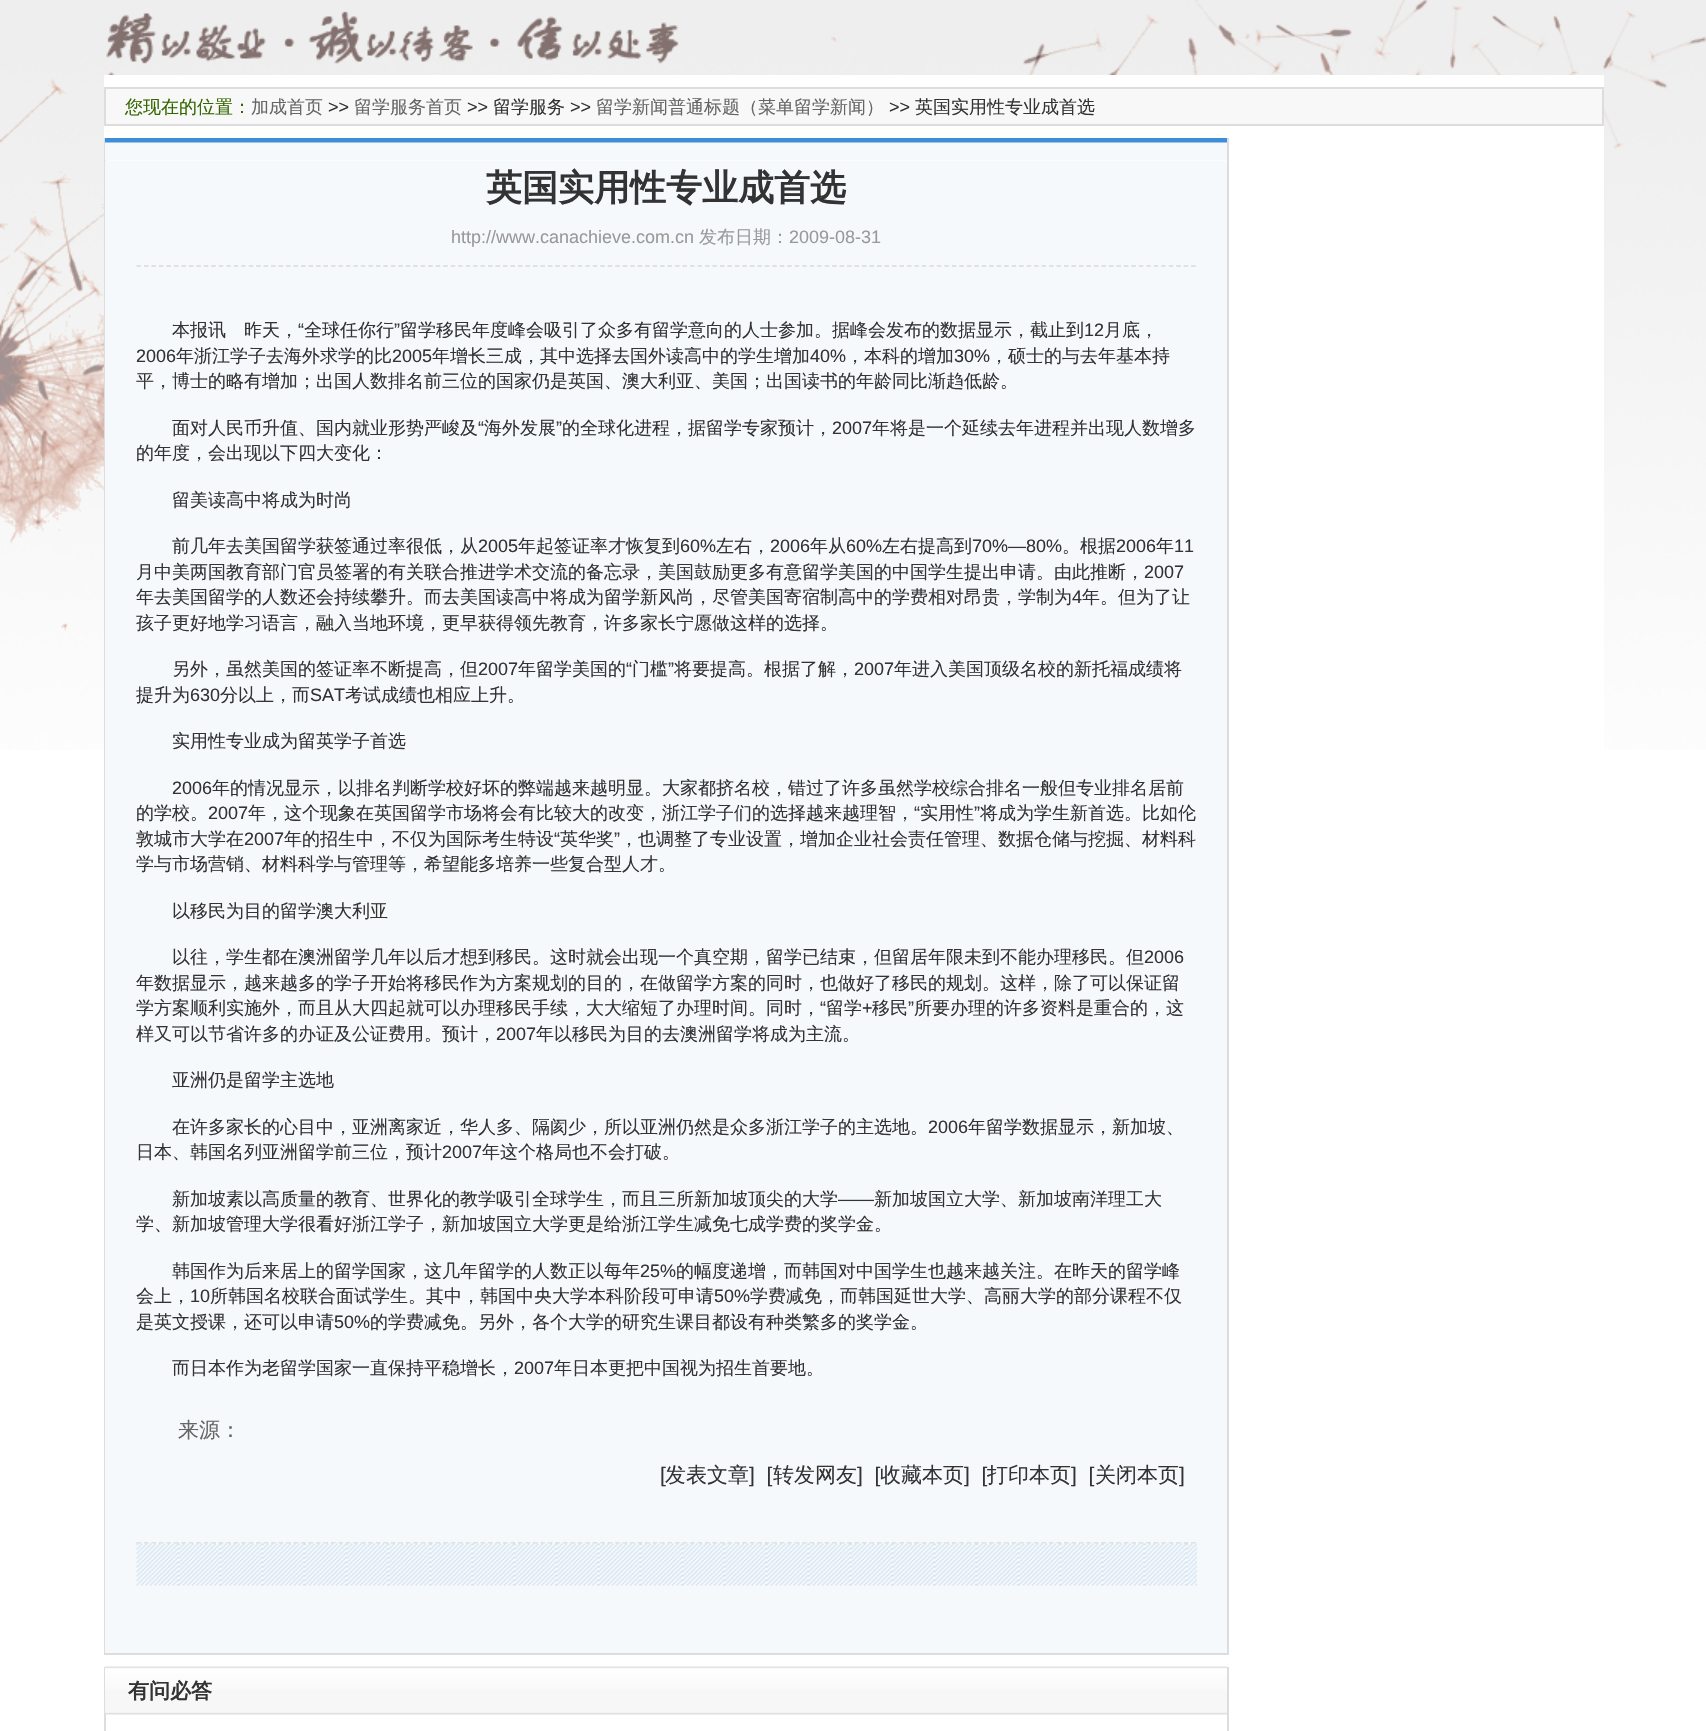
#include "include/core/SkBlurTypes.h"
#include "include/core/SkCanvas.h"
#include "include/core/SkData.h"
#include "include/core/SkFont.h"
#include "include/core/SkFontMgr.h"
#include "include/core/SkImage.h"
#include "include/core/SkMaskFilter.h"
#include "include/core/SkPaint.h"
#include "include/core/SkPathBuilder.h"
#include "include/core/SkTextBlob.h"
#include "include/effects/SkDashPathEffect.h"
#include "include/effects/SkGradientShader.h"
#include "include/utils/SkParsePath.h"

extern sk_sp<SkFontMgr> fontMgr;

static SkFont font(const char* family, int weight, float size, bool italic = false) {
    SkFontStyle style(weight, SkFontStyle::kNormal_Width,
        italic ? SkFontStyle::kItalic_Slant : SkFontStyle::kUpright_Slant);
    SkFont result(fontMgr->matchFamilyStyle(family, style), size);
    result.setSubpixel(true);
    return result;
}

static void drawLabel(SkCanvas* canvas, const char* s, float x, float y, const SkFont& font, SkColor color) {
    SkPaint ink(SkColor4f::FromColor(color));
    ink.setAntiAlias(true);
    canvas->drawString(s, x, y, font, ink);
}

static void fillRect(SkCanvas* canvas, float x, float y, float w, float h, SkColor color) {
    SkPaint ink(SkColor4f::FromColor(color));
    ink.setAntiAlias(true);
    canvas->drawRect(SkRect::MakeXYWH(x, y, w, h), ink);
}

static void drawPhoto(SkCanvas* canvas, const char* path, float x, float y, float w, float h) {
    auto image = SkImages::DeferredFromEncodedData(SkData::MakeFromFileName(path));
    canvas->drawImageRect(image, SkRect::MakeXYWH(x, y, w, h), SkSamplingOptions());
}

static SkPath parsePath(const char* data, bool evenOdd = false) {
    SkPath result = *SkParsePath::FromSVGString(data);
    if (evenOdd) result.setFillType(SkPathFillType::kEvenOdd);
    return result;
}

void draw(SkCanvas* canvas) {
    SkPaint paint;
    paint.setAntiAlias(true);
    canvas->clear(0xFFFFFFFF);
    drawPhoto(canvas, "assets/img1.png", 0, 0, 1706, 750);
    fillRect(canvas, 104, 75, 1500, 675, 0xFFFFFFFF);
    paint.setColor(0xFFF8F8F8);
    canvas->drawRect(SkRect::MakeXYWH(105, 88, 1498, 37), paint);
    paint.setStroke(true);
    paint.setStrokeWidth(2);
    paint.setColor(0xFFDDDDDD);
    canvas->drawRect(SkRect::MakeXYWH(105, 88, 1498, 37), paint);
    SkFont font1 = font("WenQuanYi Zen Hei", 500, 18);
    drawLabel(canvas, "您现在的位置：", 125, 113, font1, 0xFF336600);
    drawLabel(canvas, "加成首页", 251, 113, font1, 0xFF666666);
    SkFont font2 = font("Liberation Sans", 400, 18);
    drawLabel(canvas, ">>", 328, 113, font2, 0xFF333333);
    drawLabel(canvas, "留学服务首页", 354, 113, font1, 0xFF666666);
    drawLabel(canvas, ">>", 467, 113, font2, 0xFF333333);
    drawLabel(canvas, "留学服务", 493, 113, font1, 0xFF333333);
    drawLabel(canvas, ">>", 570, 113, font2, 0xFF333333);
    drawLabel(canvas, "留学新闻普通标题（菜单留学新闻）", 596, 113, font1, 0xFF666666);
    drawLabel(canvas, ">>", 889, 113, font2, 0xFF333333);
    drawLabel(canvas, "英国实用性专业成首选", 915, 113, font1, 0xFF333333);
    fillRect(canvas, 1227, 138, 2, 1517, 0xFFDDDDDD);
    fillRect(canvas, 104, 1653, 1125, 2, 0xFFDDDDDD);
    fillRect(canvas, 104, 138, 2, 1517, 0xFFDDDDDD);
    drawPhoto(canvas, "assets/img2.png", 105, 138, 1122, 23);
    fillRect(canvas, 105, 161, 1122, 1492, 0xFFF6F9FC);
    paint.setStrokeWidth(1.5f);
    paint.setColor(0xFFDADBD6);
    paint.setPathEffect(SkDashPathEffect::Make({{4.5f, 2.98f}}, 0));
    canvas->drawPath(parsePath("M136.5 266H1197"), paint);
    paint.setPathEffect(nullptr);
    SkFont font3 = font("WenQuanYi Zen Hei", 700, 36);
    drawLabel(canvas, "英国实用性专业成首选", 486, 200, font3, 0xFF333333);
    drawLabel(canvas, "http://www.canachieve.com.cn", 451, 243, font2, 0xFF999999);
    drawLabel(canvas, "发布日期：", 699, 243, font1, 0xFF999999);
    drawLabel(canvas, "2009-08-31", 789, 243, font2, 0xFF999999);
    paint.setPathEffect(SkDashPathEffect::Make({{4.5f, 2.98f}}, 0));
    canvas->drawPath(parsePath("M136.5 1543H1197"), paint);
    paint.setPathEffect(nullptr);
    drawLabel(canvas, "本报讯　昨天，", 172, 336, font1, 0xFF333333);
    drawLabel(canvas, "“", 298, 336, font2, 0xFF333333);
    drawLabel(canvas, "全球任你行", 304, 336, font1, 0xFF333333);
    drawLabel(canvas, "”", 394, 336, font2, 0xFF333333);
    drawLabel(canvas, "留学移民年度峰会吸引了众多有留学意向的人士参加。据峰会发布的数据显示，截止到", 400, 336, font1, 0xFF333333);
    drawLabel(canvas, "12", 1084, 336, font2, 0xFF333333);
    drawLabel(canvas, "月底，", 1104, 336, font1, 0xFF333333);
    drawLabel(canvas, "2006", 136, 362, font2, 0xFF333333);
    drawLabel(canvas, "年浙江学子去海外求学的比", 176, 362, font1, 0xFF333333);
    drawLabel(canvas, "2005", 392, 362, font2, 0xFF333333);
    drawLabel(canvas, "年增长三成，其中选择去国外读高中的学生增加", 432, 362, font1, 0xFF333333);
    drawLabel(canvas, "40%", 810, 362, font2, 0xFF333333);
    drawLabel(canvas, "，本科的增加", 846, 362, font1, 0xFF333333);
    drawLabel(canvas, "30%", 954, 362, font2, 0xFF333333);
    drawLabel(canvas, "，硕士的与去年基本持", 990, 362, font1, 0xFF333333);
    drawLabel(canvas, "平，博士的略有增加；出国人数排名前三位的国家仍是英国、澳大利亚、美国；出国读书的年龄同比渐趋低龄。", 136, 387, font1, 0xFF333333);
    drawLabel(canvas, "面对人民币升值、国内就业形势严峻及", 172, 434, font1, 0xFF333333);
    drawLabel(canvas, "“", 478, 434, font2, 0xFF333333);
    drawLabel(canvas, "海外发展", 484, 434, font1, 0xFF333333);
    drawLabel(canvas, "”", 556, 434, font2, 0xFF333333);
    drawLabel(canvas, "的全球化进程，据留学专家预计，", 562, 434, font1, 0xFF333333);
    drawLabel(canvas, "2007", 832, 434, font2, 0xFF333333);
    drawLabel(canvas, "年将是一个延续去年进程并出现人数增多", 872, 434, font1, 0xFF333333);
    drawLabel(canvas, "的年度，会出现以下四大变化：", 136, 459, font1, 0xFF333333);
    drawLabel(canvas, "留美读高中将成为时尚", 172, 506, font1, 0xFF333333);
    drawLabel(canvas, "前几年去美国留学获签通过率很低，从", 172, 552, font1, 0xFF333333);
    drawLabel(canvas, "2005", 478, 552, font2, 0xFF333333);
    drawLabel(canvas, "年起签证率才恢复到", 518, 552, font1, 0xFF333333);
    drawLabel(canvas, "60%", 680, 552, font2, 0xFF333333);
    drawLabel(canvas, "左右，", 716, 552, font1, 0xFF333333);
    drawLabel(canvas, "2006", 770, 552, font2, 0xFF333333);
    drawLabel(canvas, "年从", 810, 552, font1, 0xFF333333);
    drawLabel(canvas, "60%", 846, 552, font2, 0xFF333333);
    drawLabel(canvas, "左右提高到", 882, 552, font1, 0xFF333333);
    drawLabel(canvas, "70%—80%", 972, 552, font2, 0xFF333333);
    drawLabel(canvas, "。根据", 1062, 552, font1, 0xFF333333);
    drawLabel(canvas, "2006", 1116, 552, font2, 0xFF333333);
    drawLabel(canvas, "年", 1156, 552, font1, 0xFF333333);
    drawLabel(canvas, "11", 1174, 552, font2, 0xFF333333);
    drawLabel(canvas, "月中美两国教育部门官员签署的有关联合推进学术交流的备忘录，美国鼓励更多有意留学美国的中国学生提出申请。由此推断，", 136, 578, font1, 0xFF333333);
    drawLabel(canvas, "2007", 1144, 578, font2, 0xFF333333);
    drawLabel(canvas, "年去美国留学的人数还会持续攀升。而去美国读高中将成为留学新风尚，尽管美国寄宿制高中的学费相对昂贵，学制为", 136, 603, font1, 0xFF333333);
    drawLabel(canvas, "4", 1072, 603, font2, 0xFF333333);
    drawLabel(canvas, "年。但为了让", 1082, 603, font1, 0xFF333333);
    drawLabel(canvas, "孩子更好地学习语言，融入当地环境，更早获得领先教育，许多家长宁愿做这样的选择。", 136, 629, font1, 0xFF333333);
    drawLabel(canvas, "另外，虽然美国的签证率不断提高，但", 172, 675, font1, 0xFF333333);
    drawLabel(canvas, "2007", 478, 675, font2, 0xFF333333);
    drawLabel(canvas, "年留学美国的", 518, 675, font1, 0xFF333333);
    drawLabel(canvas, "“", 626, 675, font2, 0xFF333333);
    drawLabel(canvas, "门槛", 632, 675, font1, 0xFF333333);
    drawLabel(canvas, "”", 668, 675, font2, 0xFF333333);
    drawLabel(canvas, "将要提高。根据了解，", 674, 675, font1, 0xFF333333);
    drawLabel(canvas, "2007", 854, 675, font2, 0xFF333333);
    drawLabel(canvas, "年进入美国顶级名校的新托福成绩将", 894, 675, font1, 0xFF333333);
    drawLabel(canvas, "提升为", 136, 701, font1, 0xFF333333);
    drawLabel(canvas, "630", 190, 701, font2, 0xFF333333);
    drawLabel(canvas, "分以上，而", 220, 701, font1, 0xFF333333);
    drawLabel(canvas, "SAT", 310, 701, font2, 0xFF333333);
    drawLabel(canvas, "考试成绩也相应上升。", 345, 701, font1, 0xFF333333);
    drawLabel(canvas, "实用性专业成为留英学子首选", 172, 747, font1, 0xFF333333);
    drawLabel(canvas, "2006", 172, 794, font2, 0xFF333333);
    drawLabel(canvas, "年的情况显示，以排名判断学校好坏的弊端越来越明显。大家都挤名校，错过了许多虽然学校综合排名一般但专业排名居前", 212, 794, font1, 0xFF333333);
    drawLabel(canvas, "的学校。", 136, 819, font1, 0xFF333333);
    drawLabel(canvas, "2007", 208, 819, font2, 0xFF333333);
    drawLabel(canvas, "年，这个现象在英国留学市场将会有比较大的改变，浙江学子们的选择越来越理智，", 248, 819, font1, 0xFF333333);
    drawLabel(canvas, "“", 914, 819, font2, 0xFF333333);
    drawLabel(canvas, "实用性", 920, 819, font1, 0xFF333333);
    drawLabel(canvas, "”", 974, 819, font2, 0xFF333333);
    drawLabel(canvas, "将成为学生新首选。比如伦", 980, 819, font1, 0xFF333333);
    drawLabel(canvas, "敦城市大学在", 136, 845, font1, 0xFF333333);
    drawLabel(canvas, "2007", 244, 845, font2, 0xFF333333);
    drawLabel(canvas, "年的招生中，不仅为国际考生特设", 284, 845, font1, 0xFF333333);
    drawLabel(canvas, "“", 554, 845, font2, 0xFF333333);
    drawLabel(canvas, "英华奖", 560, 845, font1, 0xFF333333);
    drawLabel(canvas, "”", 614, 845, font2, 0xFF333333);
    drawLabel(canvas, "，也调整了专业设置，增加企业社会责任管理、数据仓储与挖掘、材料科", 620, 845, font1, 0xFF333333);
    drawLabel(canvas, "学与市场营销、材料科学与管理等，希望能多培养一些复合型人才。", 136, 870, font1, 0xFF333333);
    drawLabel(canvas, "以移民为目的留学澳大利亚", 172, 917, font1, 0xFF333333);
    drawLabel(canvas, "以往，学生都在澳洲留学几年以后才想到移民。这时就会出现一个真空期，留学已结束，但留居年限未到不能办理移民。但", 172, 963, font1, 0xFF333333);
    drawLabel(canvas, "2006", 1144, 963, font2, 0xFF333333);
    drawLabel(canvas, "年数据显示，越来越多的学子开始将移民作为方案规划的目的，在做留学方案的同时，也做好了移民的规划。这样，除了可以保证留", 136, 989, font1, 0xFF333333);
    drawLabel(canvas, "学方案顺利实施外，而且从大四起就可以办理移民手续，大大缩短了办理时间。同时，", 136, 1014, font1, 0xFF333333);
    drawLabel(canvas, "“", 820, 1014, font2, 0xFF333333);
    drawLabel(canvas, "留学", 826, 1014, font1, 0xFF333333);
    drawLabel(canvas, "+", 862, 1014, font2, 0xFF333333);
    drawLabel(canvas, "移民", 872, 1014, font1, 0xFF333333);
    drawLabel(canvas, "”", 908, 1014, font2, 0xFF333333);
    drawLabel(canvas, "所要办理的许多资料是重合的，这", 914, 1014, font1, 0xFF333333);
    drawLabel(canvas, "样又可以节省许多的办证及公证费用。预计，", 136, 1040, font1, 0xFF333333);
    drawLabel(canvas, "2007", 496, 1040, font2, 0xFF333333);
    drawLabel(canvas, "年以移民为目的去澳洲留学将成为主流。", 536, 1040, font1, 0xFF333333);
    drawLabel(canvas, "亚洲仍是留学主选地", 172, 1086, font1, 0xFF333333);
    drawLabel(canvas, "在许多家长的心目中，亚洲离家近，华人多、隔阂少，所以亚洲仍然是众多浙江学子的主选地。", 172, 1133, font1, 0xFF333333);
    drawLabel(canvas, "2006", 928, 1133, font2, 0xFF333333);
    drawLabel(canvas, "年留学数据显示，新加坡、", 968, 1133, font1, 0xFF333333);
    drawLabel(canvas, "日本、韩国名列亚洲留学前三位，预计", 136, 1158, font1, 0xFF333333);
    drawLabel(canvas, "2007", 442, 1158, font2, 0xFF333333);
    drawLabel(canvas, "年这个格局也不会打破。", 482, 1158, font1, 0xFF333333);
    drawLabel(canvas, "新加坡素以高质量的教育、世界化的教学吸引全球学生，而且三所新加坡顶尖的大学", 172, 1205, font1, 0xFF333333);
    drawLabel(canvas, "——", 838, 1205, font2, 0xFF333333);
    drawLabel(canvas, "新加坡国立大学、新加坡南洋理工大", 874, 1205, font1, 0xFF333333);
    drawLabel(canvas, "学、新加坡管理大学很看好浙江学子，新加坡国立大学更是给浙江学生减免七成学费的奖学金。", 136, 1230, font1, 0xFF333333);
    drawLabel(canvas, "韩国作为后来居上的留学国家，这几年留学的人数正以每年", 172, 1277, font1, 0xFF333333);
    drawLabel(canvas, "25%", 640, 1277, font2, 0xFF333333);
    drawLabel(canvas, "的幅度递增，而韩国对中国学生也越来越关注。在昨天的留学峰", 676, 1277, font1, 0xFF333333);
    drawLabel(canvas, "会上，", 136, 1302, font1, 0xFF333333);
    drawLabel(canvas, "10", 190, 1302, font2, 0xFF333333);
    drawLabel(canvas, "所韩国名校联合面试学生。其中，韩国中央大学本科阶段可申请", 210, 1302, font1, 0xFF333333);
    drawLabel(canvas, "50%", 714, 1302, font2, 0xFF333333);
    drawLabel(canvas, "学费减免，而韩国延世大学、高丽大学的部分课程不仅", 750, 1302, font1, 0xFF333333);
    drawLabel(canvas, "是英文授课，还可以申请", 136, 1328, font1, 0xFF333333);
    drawLabel(canvas, "50%", 334, 1328, font2, 0xFF333333);
    drawLabel(canvas, "的学费减免。另外，各个大学的研究生课目都设有种类繁多的奖学金。", 370, 1328, font1, 0xFF333333);
    drawLabel(canvas, "而日本作为老留学国家一直保持平稳增长，", 172, 1374, font1, 0xFF333333);
    drawLabel(canvas, "2007", 514, 1374, font2, 0xFF333333);
    drawLabel(canvas, "年日本更把中国视为招生首要地。", 554, 1374, font1, 0xFF333333);
    SkFont font4 = font("WenQuanYi Zen Hei", 500, 21);
    drawLabel(canvas, "来源：", 178, 1437, font4, 0xFF666666);
    SkFont font5 = font("Liberation Sans", 400, 21);
    drawLabel(canvas, "[", 660, 1482, font5, 0xFF333333);
    drawLabel(canvas, "发表文章", 665, 1482, font4, 0xFF333333);
    drawLabel(canvas, "]  [", 749, 1482, font5, 0xFF333333);
    drawLabel(canvas, "转发网友", 773, 1482, font4, 0xFF333333);
    drawLabel(canvas, "]  [", 857, 1482, font5, 0xFF333333);
    drawLabel(canvas, "收藏本页", 880, 1482, font4, 0xFF333333);
    drawLabel(canvas, "]  [", 964, 1482, font5, 0xFF333333);
    drawLabel(canvas, "打印本页", 987, 1482, font4, 0xFF333333);
    drawLabel(canvas, "]  [", 1071, 1482, font5, 0xFF333333);
    drawLabel(canvas, "关闭本页", 1095, 1482, font4, 0xFF333333);
    drawLabel(canvas, "]", 1179, 1482, font5, 0xFF333333);
    drawPhoto(canvas, "assets/img3.png", 136, 1543, 1061, 43);
    fillRect(canvas, 1227, 1667, 2, 64, 0xFFDDDDDD);
    fillRect(canvas, 104, 1667, 2, 64, 0xFFDDDDDD);
    drawPhoto(canvas, "assets/img4.png", 105, 1666, 1122, 49);
    SkFont font6 = font("WenQuanYi Zen Hei", 700, 21);
    drawLabel(canvas, "有问必答", 128, 1698, font6, 0xFF333333);
}
